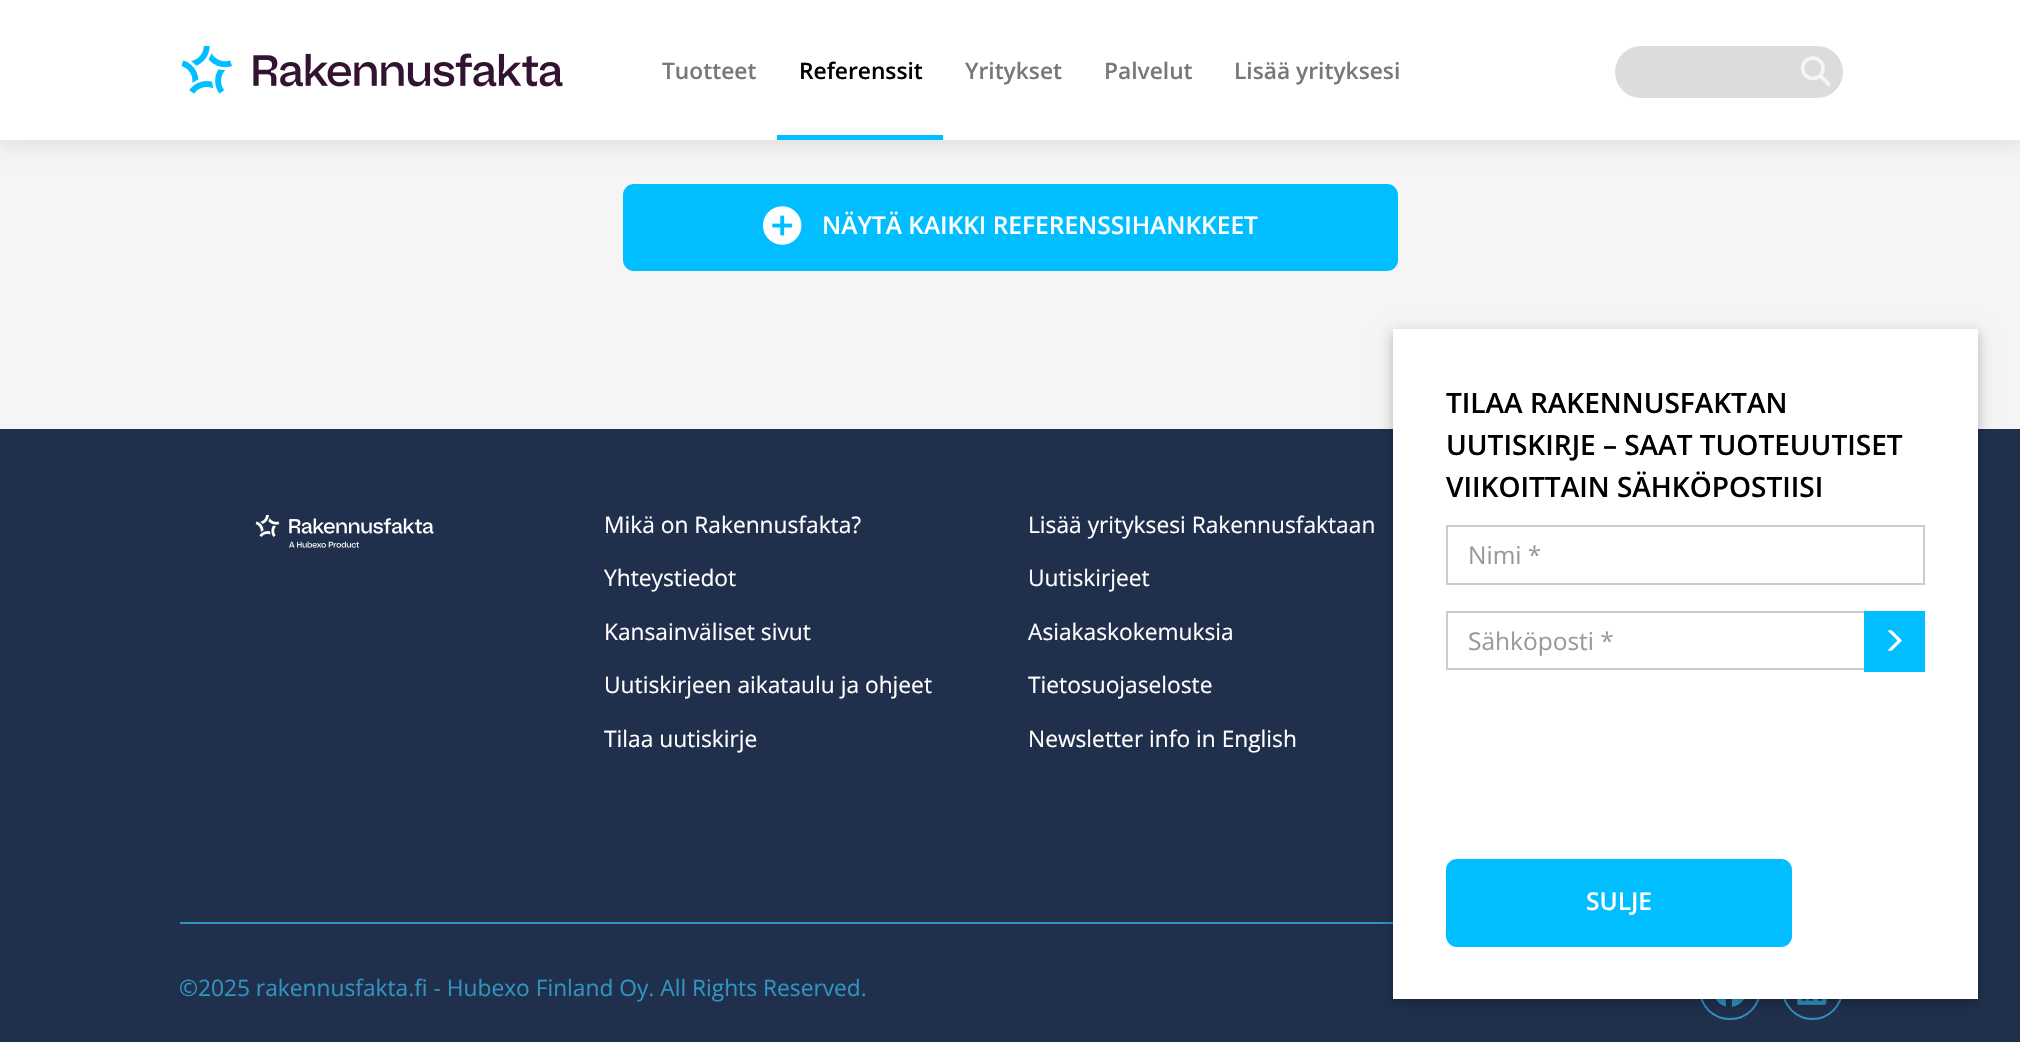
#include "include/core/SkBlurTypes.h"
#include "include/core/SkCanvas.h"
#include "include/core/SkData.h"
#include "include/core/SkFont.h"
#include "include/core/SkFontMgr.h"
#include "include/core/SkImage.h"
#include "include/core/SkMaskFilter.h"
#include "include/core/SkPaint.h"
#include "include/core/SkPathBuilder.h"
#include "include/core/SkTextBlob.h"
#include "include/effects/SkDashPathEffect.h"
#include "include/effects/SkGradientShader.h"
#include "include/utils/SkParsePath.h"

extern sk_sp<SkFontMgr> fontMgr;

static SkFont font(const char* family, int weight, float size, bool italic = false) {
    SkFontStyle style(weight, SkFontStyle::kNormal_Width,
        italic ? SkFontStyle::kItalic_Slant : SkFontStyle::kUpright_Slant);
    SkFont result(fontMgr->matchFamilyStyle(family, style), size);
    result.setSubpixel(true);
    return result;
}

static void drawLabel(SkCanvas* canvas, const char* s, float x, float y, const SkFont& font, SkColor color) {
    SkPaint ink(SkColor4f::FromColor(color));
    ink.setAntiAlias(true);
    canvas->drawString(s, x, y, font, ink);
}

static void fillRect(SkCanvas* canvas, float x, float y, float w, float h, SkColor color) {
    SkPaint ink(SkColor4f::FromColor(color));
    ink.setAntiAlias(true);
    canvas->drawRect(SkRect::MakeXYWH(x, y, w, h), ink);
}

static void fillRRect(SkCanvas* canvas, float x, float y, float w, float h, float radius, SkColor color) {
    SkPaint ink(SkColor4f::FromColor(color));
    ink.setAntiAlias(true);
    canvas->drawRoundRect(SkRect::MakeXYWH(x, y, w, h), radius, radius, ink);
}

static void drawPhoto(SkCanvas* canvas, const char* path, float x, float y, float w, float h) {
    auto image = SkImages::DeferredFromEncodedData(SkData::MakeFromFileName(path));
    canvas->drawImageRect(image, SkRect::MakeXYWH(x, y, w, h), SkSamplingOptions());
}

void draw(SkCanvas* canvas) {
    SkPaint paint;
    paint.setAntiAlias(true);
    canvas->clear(0xFFF5F5F5);
    paint.setColor(0x1A000000);
    paint.setMaskFilter(SkMaskFilter::MakeBlur(kNormal_SkBlurStyle, 10.5f));
    canvas->drawRect(SkRect::MakeXYWH(0, 4, 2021, 140), paint);
    paint.setMaskFilter(nullptr);
    fillRect(canvas, 0, 0, 2020, 140, 0xFFFFFFFF);
    drawPhoto(canvas, "assets/img1.png", 181, 46, 382, 48);
    SkFont font1 = font("Open Sans", 600, 22.75f);
    drawLabel(canvas, "Tuotteet", 662, 79, font1, 0xFF787878);
    fillRect(canvas, 777, 135, 166, 5, 0xFF00BEFF);
    drawLabel(canvas, "Referenssit", 799, 79, font1, 0xFF000000);
    drawLabel(canvas, "Yritykset", 965, 79, font1, 0xFF787878);
    drawLabel(canvas, "Palvelut", 1104, 79, font1, 0xFF787878);
    drawLabel(canvas, "Lisää yrityksesi", 1234, 79, font1, 0xFF787878);
    fillRRect(canvas, 1615, 46, 228, 52, 26, 0xFFDCDCDC);
    drawPhoto(canvas, "assets/img2.png", 1800, 56, 31, 30);
    fillRRect(canvas, 623, 184, 775, 87, 11, 0xFF00BEFF);
    drawPhoto(canvas, "assets/img3.png", 763, 206, 39, 39);
    SkFont font2 = font("Open Sans", 600, 24.5f);
    drawLabel(canvas, "NÄYTÄ KAIKKI REFERENSSIHANKKEET", 822, 234, font2, 0xFFFFFFFF);
    fillRect(canvas, 0, 429, 2020, 613, 0xFF20304C);
    drawPhoto(canvas, "assets/img4.png", 255, 515, 179, 33);
    SkFont font3 = font("Open Sans", 400, 22.75f);
    drawLabel(canvas, "Mikä on Rakennusfakta?", 604, 533, font3, 0xFFFFFFFF);
    drawLabel(canvas, "Yhteystiedot", 604, 586, font3, 0xFFFFFFFF);
    drawLabel(canvas, "Kansainväliset sivut", 604, 640, font3, 0xFFFFFFFF);
    drawLabel(canvas, "Uutiskirjeen aikataulu ja ohjeet", 604, 693, font3, 0xFFFFFFFF);
    drawLabel(canvas, "Tilaa uutiskirje", 604, 747, font3, 0xFFFFFFFF);
    drawLabel(canvas, "Lisää yrityksesi Rakennusfaktaan", 1028, 533, font3, 0xFFFFFFFF);
    drawLabel(canvas, "Uutiskirjeet", 1028, 586, font3, 0xFFFFFFFF);
    drawLabel(canvas, "Asiakaskokemuksia", 1028, 640, font3, 0xFFFFFFFF);
    drawLabel(canvas, "Tietosuojaseloste", 1028, 693, font3, 0xFFFFFFFF);
    drawLabel(canvas, "Newsletter info in English", 1028, 747, font3, 0xFFFFFFFF);
    fillRect(canvas, 180, 922, 1213, 2, 0xFF3094C1);
    drawLabel(canvas, "©2025 rakennusfakta.fi - Hubexo Finland Oy. All Rights Reserved.", 179, 996, font3, 0xFF3094C1);
    paint.setStroke(true);
    paint.setStrokeWidth(2);
    paint.setColor(0xFF3094C1);
    canvas->drawRoundRect(SkRect::MakeXYWH(1700, 960, 60, 59), 29.5f, 29.5f, paint);
    drawPhoto(canvas, "assets/img5.png", 1715, 999, 29, 8);
    canvas->drawCircle(1812.5f, 989.5f, 29.5f, paint);
    drawPhoto(canvas, "assets/img6.png", 1797, 999, 30, 6);
    paint.setStroke(false);
    paint.setColor(0x1F000000);
    paint.setMaskFilter(SkMaskFilter::MakeBlur(kNormal_SkBlurStyle, 9));
    canvas->drawRect(SkRect::MakeXYWH(1393, 333, 585, 670), paint);
    paint.setMaskFilter(nullptr);
    paint.setColor(0x29000000);
    paint.setMaskFilter(SkMaskFilter::MakeBlur(kNormal_SkBlurStyle, 4.5f));
    canvas->drawRect(SkRect::MakeXYWH(1393, 333, 585, 670), paint);
    paint.setMaskFilter(nullptr);
    fillRect(canvas, 1393, 329, 585, 670, 0xFFFFFFFF);
    SkFont font4 = font("Open Sans", 600, 28);
    drawLabel(canvas, "TILAA RAKENNUSFAKTAN", 1446, 413, font4, 0xFF000000);
    drawLabel(canvas, "UUTISKIRJE – SAAT TUOTEUUTISET", 1446, 455, font4, 0xFF000000);
    drawLabel(canvas, "VIIKOITTAIN SÄHKÖPOSTIISI", 1446, 497, font4, 0xFF000000);
    paint.setStroke(true);
    paint.setColor(0xFFCCCCCC);
    canvas->drawRect(SkRect::MakeXYWH(1447, 526, 477, 58), paint);
    SkFont font5 = font("Open Sans", 400, 24.5f);
    drawLabel(canvas, "Nimi *", 1468, 564, font5, 0xFF999999);
    canvas->drawRect(SkRect::MakeXYWH(1447, 612, 477, 57), paint);
    drawLabel(canvas, "Sähköposti *", 1468, 650, font5, 0xFF999999);
    fillRect(canvas, 1864, 611, 61, 61, 0xFF00BEFF);
    drawPhoto(canvas, "assets/img7.png", 1887, 630, 15, 21);
    fillRRect(canvas, 1446, 859, 346, 88, 11, 0xFF00BEFF);
    drawLabel(canvas, "SULJE", 1586, 910, font2, 0xFFFFFFFF);
}
